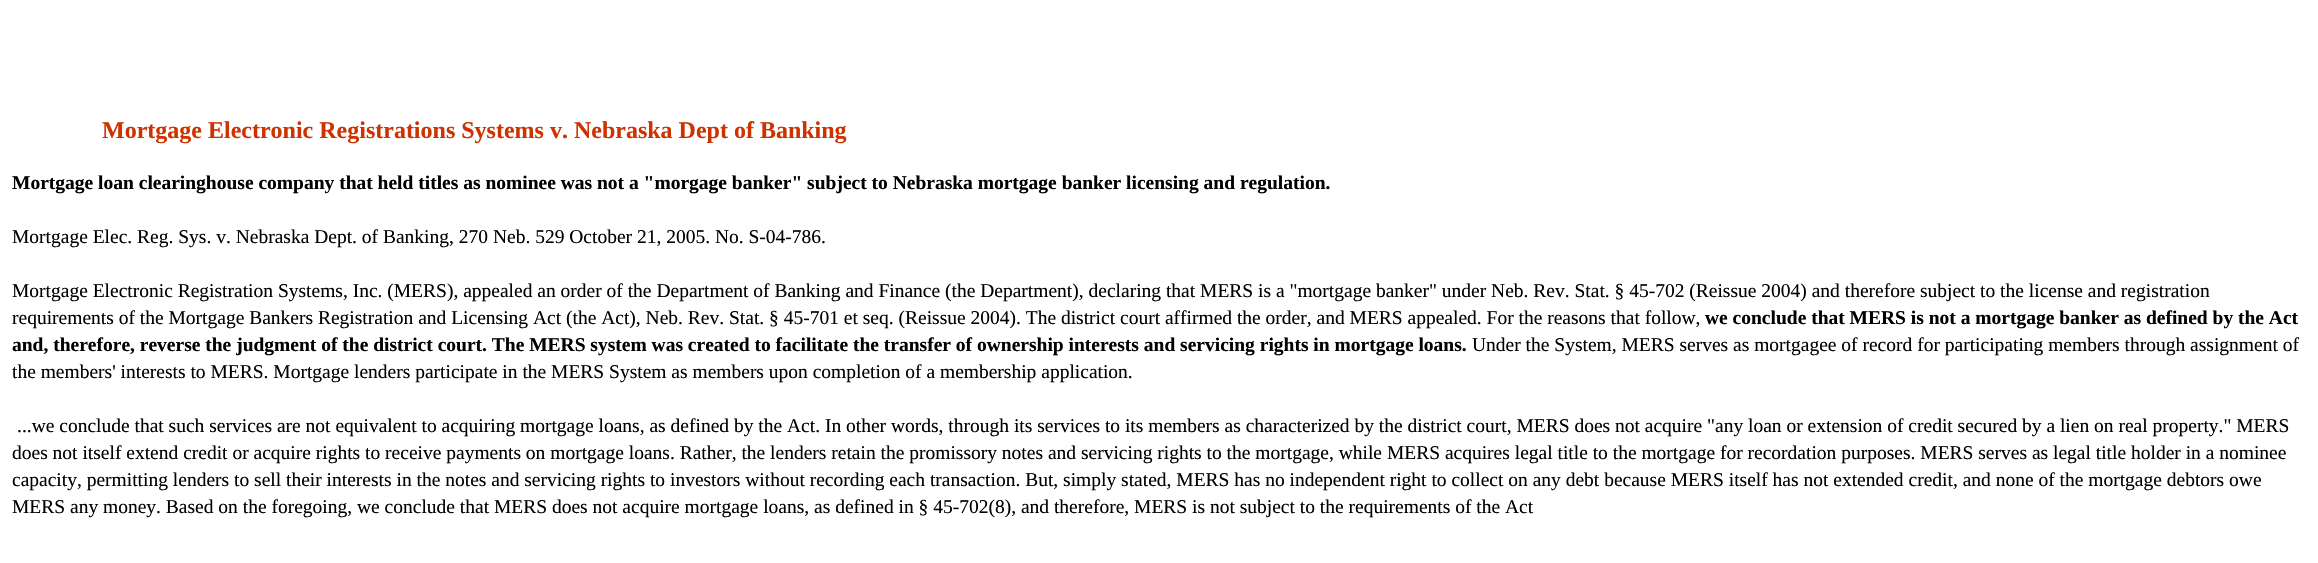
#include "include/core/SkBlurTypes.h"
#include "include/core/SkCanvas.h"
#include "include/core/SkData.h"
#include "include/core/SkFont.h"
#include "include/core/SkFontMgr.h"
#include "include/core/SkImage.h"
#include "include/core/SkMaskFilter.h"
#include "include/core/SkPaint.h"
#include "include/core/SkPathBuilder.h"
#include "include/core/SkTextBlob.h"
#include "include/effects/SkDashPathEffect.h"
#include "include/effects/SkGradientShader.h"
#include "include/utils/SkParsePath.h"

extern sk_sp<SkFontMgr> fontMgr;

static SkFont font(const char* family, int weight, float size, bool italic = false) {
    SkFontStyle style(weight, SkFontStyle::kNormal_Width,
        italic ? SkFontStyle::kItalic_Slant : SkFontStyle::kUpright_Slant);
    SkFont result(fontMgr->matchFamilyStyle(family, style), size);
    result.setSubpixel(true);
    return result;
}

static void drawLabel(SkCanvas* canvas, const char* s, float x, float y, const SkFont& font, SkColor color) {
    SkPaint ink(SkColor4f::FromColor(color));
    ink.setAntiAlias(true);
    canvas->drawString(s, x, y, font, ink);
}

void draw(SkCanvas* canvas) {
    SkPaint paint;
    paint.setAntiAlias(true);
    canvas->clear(0xFFFFFFFF);
    SkFont font1 = font("Liberation Serif", 700, 24);
    drawLabel(canvas, "Mortgage Electronic Registrations Systems v. Nebraska Dept of Banking", 102, 138, font1, 0xFFCC3300);
    SkFont font2 = font("Liberation Serif", 700, 19.5f);
    drawLabel(canvas, "Mortgage loan clearinghouse company that held titles as nominee was not a \"morgage banker\" subject to Nebraska mortgage banker licensing and regulation.", 12, 189, font2, 0xFF000000);
    SkFont font3 = font("Liberation Serif", 400, 19.5f);
    drawLabel(canvas, "Mortgage Elec. Reg. Sys. v. Nebraska Dept. of Banking, 270 Neb. 529 October 21, 2005. No. S-04-786.", 12, 243, font3, 0xFF000000);
    drawLabel(canvas, "Mortgage Electronic Registration Systems, Inc. (MERS), appealed an order of the Department of Banking and Finance (the Department), declaring that MERS is a \"mortgage banker\" under Neb. Rev. Stat. § 45-702 (Reissue 2004) and therefore subject to the license and registration", 12, 297, font3, 0xFF000000);
    drawLabel(canvas, "requirements of the Mortgage Bankers Registration and Licensing Act (the Act), Neb. Rev. Stat. § 45-701 et seq. (Reissue 2004). The district court affirmed the order, and MERS appealed. For the reasons that follow,", 12, 324, font3, 0xFF000000);
    drawLabel(canvas, "we conclude that MERS is not a mortgage banker as defined by the Act", 1705, 324, font2, 0xFF000000);
    drawLabel(canvas, "and, therefore, reverse the judgment of the district court. The MERS system was created to facilitate the transfer of ownership interests and servicing rights in mortgage loans.", 12, 351, font2, 0xFF000000);
    drawLabel(canvas, "Under the System, MERS serves as mortgagee of record for participating members through assignment of", 1472, 351, font3, 0xFF000000);
    drawLabel(canvas, "the members' interests to MERS. Mortgage lenders participate in the MERS System as members upon completion of a membership application.", 12, 378, font3, 0xFF000000);
    drawLabel(canvas, "...we conclude that such services are not equivalent to acquiring mortgage loans, as defined by the Act. In other words, through its services to its members as characterized by the district court, MERS does not acquire \"any loan or extension of credit secured by a lien on real property.\" MERS", 17, 432, font3, 0xFF000000);
    drawLabel(canvas, "does not itself extend credit or acquire rights to receive payments on mortgage loans. Rather, the lenders retain the promissory notes and servicing rights to the mortgage, while MERS acquires legal title to the mortgage for recordation purposes. MERS serves as legal title holder in a nominee", 12, 459, font3, 0xFF000000);
    drawLabel(canvas, "capacity, permitting lenders to sell their interests in the notes and servicing rights to investors without recording each transaction. But, simply stated, MERS has no independent right to collect on any debt because MERS itself has not extended credit, and none of the mortgage debtors owe", 12, 486, font3, 0xFF000000);
    drawLabel(canvas, "MERS any money. Based on the foregoing, we conclude that MERS does not acquire mortgage loans, as defined in § 45-702(8), and therefore, MERS is not subject to the requirements of the Act", 12, 513, font3, 0xFF000000);
}
